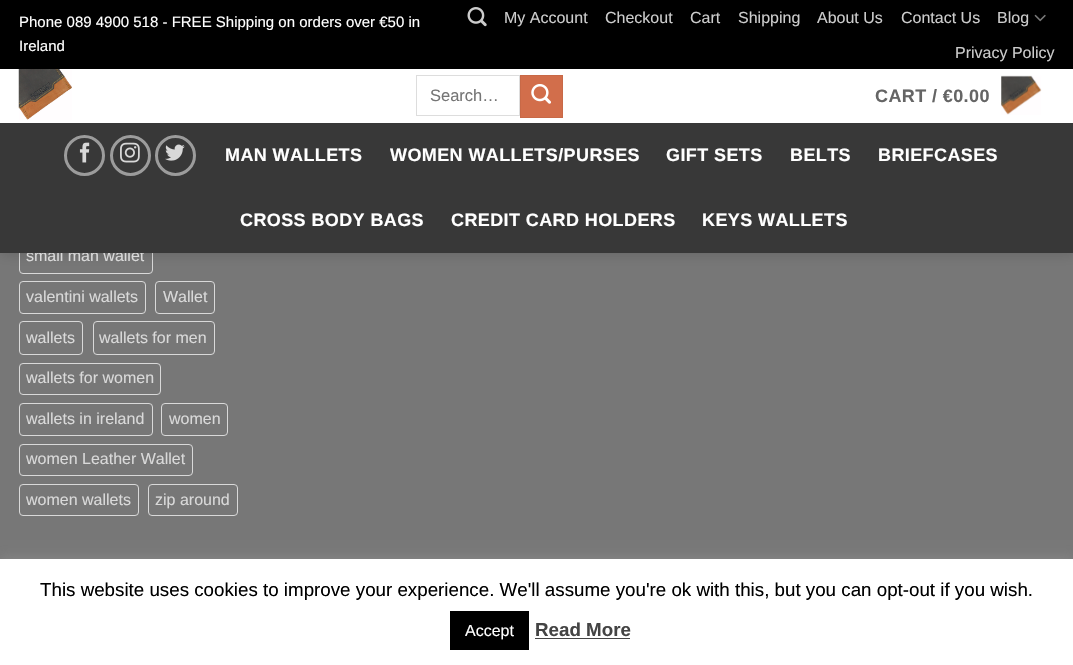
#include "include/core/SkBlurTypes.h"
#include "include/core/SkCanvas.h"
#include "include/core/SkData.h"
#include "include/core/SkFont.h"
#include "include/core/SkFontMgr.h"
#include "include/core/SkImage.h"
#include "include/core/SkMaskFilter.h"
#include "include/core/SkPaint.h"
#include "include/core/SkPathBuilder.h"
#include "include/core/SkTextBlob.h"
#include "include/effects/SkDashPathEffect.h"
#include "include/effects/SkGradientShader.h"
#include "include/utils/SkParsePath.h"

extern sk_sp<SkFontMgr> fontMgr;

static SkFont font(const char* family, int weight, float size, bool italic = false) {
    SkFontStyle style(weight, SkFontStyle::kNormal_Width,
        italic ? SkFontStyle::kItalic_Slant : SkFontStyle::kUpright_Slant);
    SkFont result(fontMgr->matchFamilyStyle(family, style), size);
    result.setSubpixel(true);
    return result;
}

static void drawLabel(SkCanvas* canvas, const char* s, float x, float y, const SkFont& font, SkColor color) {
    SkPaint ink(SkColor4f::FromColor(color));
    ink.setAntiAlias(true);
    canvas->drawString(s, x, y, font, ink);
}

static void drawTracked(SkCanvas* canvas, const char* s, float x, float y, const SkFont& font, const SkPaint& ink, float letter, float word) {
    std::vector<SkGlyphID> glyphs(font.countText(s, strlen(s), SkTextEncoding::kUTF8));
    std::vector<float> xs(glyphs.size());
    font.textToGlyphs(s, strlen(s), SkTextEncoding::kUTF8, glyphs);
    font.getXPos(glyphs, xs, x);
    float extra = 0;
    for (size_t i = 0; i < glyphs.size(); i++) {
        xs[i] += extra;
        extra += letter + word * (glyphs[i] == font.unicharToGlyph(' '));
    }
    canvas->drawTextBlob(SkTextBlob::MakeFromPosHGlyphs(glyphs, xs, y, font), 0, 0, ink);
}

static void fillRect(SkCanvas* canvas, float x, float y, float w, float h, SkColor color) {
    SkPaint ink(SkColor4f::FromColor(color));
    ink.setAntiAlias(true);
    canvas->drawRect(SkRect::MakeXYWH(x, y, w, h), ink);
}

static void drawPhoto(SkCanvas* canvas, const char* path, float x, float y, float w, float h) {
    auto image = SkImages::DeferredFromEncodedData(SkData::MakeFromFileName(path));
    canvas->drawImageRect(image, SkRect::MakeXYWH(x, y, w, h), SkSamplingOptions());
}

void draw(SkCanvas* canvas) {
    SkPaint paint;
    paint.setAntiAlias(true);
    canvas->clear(0xFF777777);
    paint.setStroke(true);
    paint.setStrokeWidth(1);
    paint.setColor(0xFFD9D9D9);
    canvas->drawRoundRect(SkRect::MakeXYWH(19.5f, 240.5f, 133, 33), 3.5f, 3.5f, paint);
    paint.setStroke(false);
    paint.setColor(0x26000000);
    paint.setMaskFilter(SkMaskFilter::MakeBlur(kNormal_SkBlurStyle, 6));
    canvas->drawRect(SkRect::MakeXYWH(1, 1, 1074, 253), paint);
    paint.setMaskFilter(nullptr);
    fillRect(canvas, 0, 0, 1073, 69, 0xFF000000);
    SkFont font1 = font("Liberation Sans", 400, 15);
    drawLabel(canvas, "Phone 089 4900 518 - FREE Shipping on orders over €50 in", 19, 27, font1, 0xFFFFFFFF);
    drawLabel(canvas, "Ireland", 19, 51, font1, 0xFFFFFFFF);
    drawPhoto(canvas, "assets/img1.png", 467, 7, 20, 20);
    SkFont font2 = font("Liberation Sans", 400, 16);
    drawLabel(canvas, "My Account", 504, 23, font2, 0xFFCCCCCC);
    drawLabel(canvas, "Checkout", 605, 23, font2, 0xFFCCCCCC);
    drawLabel(canvas, "Cart", 690, 23, font2, 0xFFCCCCCC);
    drawLabel(canvas, "Shipping", 738, 23, font2, 0xFFCCCCCC);
    drawLabel(canvas, "About Us", 817, 23, font2, 0xFFCCCCCC);
    drawLabel(canvas, "Contact Us", 901, 23, font2, 0xFFCCCCCC);
    drawLabel(canvas, "Blog", 997, 23, font2, 0xFFCCCCCC);
    drawPhoto(canvas, "assets/img2.png", 1034, 14, 12, 8);
    drawLabel(canvas, "Privacy Policy", 955, 58, font2, 0xFFCCCCCC);
    fillRect(canvas, 0, 69, 1073, 54, 0xFFFFFFFF);
    drawPhoto(canvas, "assets/img3.png", 18, 69, 54, 51);
    paint.setStroke(true);
    paint.setColor(0xFFDDDDDD);
    canvas->drawRect(SkRect::MakeXYWH(416.5f, 75.5f, 103, 40), paint);
    SkFont font3 = font("Liberation Sans", 400, 16.5f);
    drawLabel(canvas, "Search…", 430, 101, font3, 0xFF757575);
    paint.setStroke(false);
    paint.setColor(0xFFD26E4B);
    canvas->drawRect(SkRect::MakeXYWH(520.5f, 75.5f, 42, 42), paint);
    paint.setStroke(true);
    paint.setColor(0xFFC86947);
    canvas->drawRect(SkRect::MakeXYWH(520.5f, 75.5f, 42, 42), paint);
    drawPhoto(canvas, "assets/img4.png", 531, 84, 20, 20);
    SkFont font4 = font("Liberation Sans", 700, 18);
    paint.setStroke(false);
    paint.setColor(0xFF656565);
    drawTracked(canvas, "CART / €0.00", 875, 102, font4, paint, 0.4f, 0);
    drawPhoto(canvas, "assets/img5.png", 1001, 75, 41, 40);
    drawLabel(canvas, "small man wallet", 26, 261, font2, 0xFFD9D9D9);
    fillRect(canvas, 0, 123, 1073, 130, 0xFF383838);
    paint.setStroke(true);
    paint.setStrokeWidth(3);
    paint.setColor(0xFF9C9C9C);
    canvas->drawCircle(84.5f, 155.5f, 19, paint);
    drawPhoto(canvas, "assets/img6.png", 79, 142, 11, 21);
    canvas->drawCircle(130.5f, 155.5f, 19, paint);
    drawPhoto(canvas, "assets/img7.png", 120, 142, 20, 21);
    canvas->drawCircle(175.5f, 155.5f, 19, paint);
    drawPhoto(canvas, "assets/img8.png", 165, 144, 20, 17);
    paint.setStroke(false);
    paint.setColor(0xFFFFFFFF);
    drawTracked(canvas, "MAN WALLETS", 225, 161, font4, paint, 0.4f, 0);
    drawTracked(canvas, "WOMEN WALLETS/PURSES", 390, 161, font4, paint, 0.4f, 0);
    drawTracked(canvas, "GIFT SETS", 666, 161, font4, paint, 0.4f, 0);
    drawTracked(canvas, "BELTS", 790, 161, font4, paint, 0.4f, 0);
    drawTracked(canvas, "BRIEFCASES", 878, 161, font4, paint, 0.4f, 0);
    drawTracked(canvas, "CROSS BODY BAGS", 240, 226, font4, paint, 0.4f, 0);
    drawTracked(canvas, "CREDIT CARD HOLDERS", 451, 226, font4, paint, 0.4f, 0);
    drawTracked(canvas, "KEYS WALLETS", 702, 226, font4, paint, 0.4f, 0);
    paint.setStroke(true);
    paint.setStrokeWidth(1);
    paint.setColor(0xFFD9D9D9);
    canvas->drawRoundRect(SkRect::MakeXYWH(19.5f, 281.5f, 126, 32), 3.5f, 3.5f, paint);
    drawLabel(canvas, "valentini wallets", 26, 302, font2, 0xFFD9D9D9);
    canvas->drawRoundRect(SkRect::MakeXYWH(155.5f, 281.5f, 59, 32), 3.5f, 3.5f, paint);
    drawLabel(canvas, "Wallet", 163, 302, font2, 0xFFD9D9D9);
    canvas->drawRoundRect(SkRect::MakeXYWH(19.5f, 321.5f, 63, 33), 3.5f, 3.5f, paint);
    drawLabel(canvas, "wallets", 26, 343, font2, 0xFFD9D9D9);
    canvas->drawRoundRect(SkRect::MakeXYWH(93.5f, 321.5f, 121, 33), 3.5f, 3.5f, paint);
    drawLabel(canvas, "wallets for men", 99, 343, font2, 0xFFD9D9D9);
    canvas->drawRoundRect(SkRect::MakeXYWH(19.5f, 363.5f, 141, 31), 3.5f, 3.5f, paint);
    drawLabel(canvas, "wallets for women", 26, 383, font2, 0xFFD9D9D9);
    canvas->drawRoundRect(SkRect::MakeXYWH(19.5f, 403.5f, 133, 32), 3.5f, 3.5f, paint);
    drawLabel(canvas, "wallets in ireland", 26, 424, font2, 0xFFD9D9D9);
    canvas->drawRoundRect(SkRect::MakeXYWH(161.5f, 403.5f, 66, 32), 3.5f, 3.5f, paint);
    drawLabel(canvas, "women", 169, 424, font2, 0xFFD9D9D9);
    canvas->drawRoundRect(SkRect::MakeXYWH(19.5f, 444.5f, 173, 31), 3.5f, 3.5f, paint);
    drawLabel(canvas, "women Leather Wallet", 26, 464, font2, 0xFFD9D9D9);
    canvas->drawRoundRect(SkRect::MakeXYWH(19.5f, 484.5f, 119, 31), 3.5f, 3.5f, paint);
    drawLabel(canvas, "women wallets", 26, 505, font2, 0xFFD9D9D9);
    canvas->drawRoundRect(SkRect::MakeXYWH(148.5f, 484.5f, 89, 31), 3.5f, 3.5f, paint);
    drawLabel(canvas, "zip around", 155, 505, font2, 0xFFD9D9D9);
    paint.setStroke(false);
    paint.setColor(0x4DACABAB);
    paint.setMaskFilter(SkMaskFilter::MakeBlur(kNormal_SkBlurStyle, 6));
    canvas->drawRect(SkRect::MakeXYWH(0, 558, 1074, 106), paint);
    paint.setMaskFilter(nullptr);
    fillRect(canvas, 0, 559, 1073, 106, 0xFFFFFFFF);
    SkFont font5 = font("Liberation Sans", 400, 18.75f);
    drawLabel(canvas, "This website uses cookies to improve your experience. We'll assume you're ok with this, but you can opt-out if you wish.", 40, 596, font5, 0xFF000000);
    fillRect(canvas, 450, 611, 79, 39, 0xFF000000);
    drawLabel(canvas, "Accept", 465, 636, font2, 0xFFFFFFFF);
    SkFont font6 = font("Liberation Sans", 700, 18.75f);
    drawLabel(canvas, "Read More", 535, 636, font6, 0xFF444444);
    fillRect(canvas, 535, 638, 95, 1, 0xFF444444);
}
